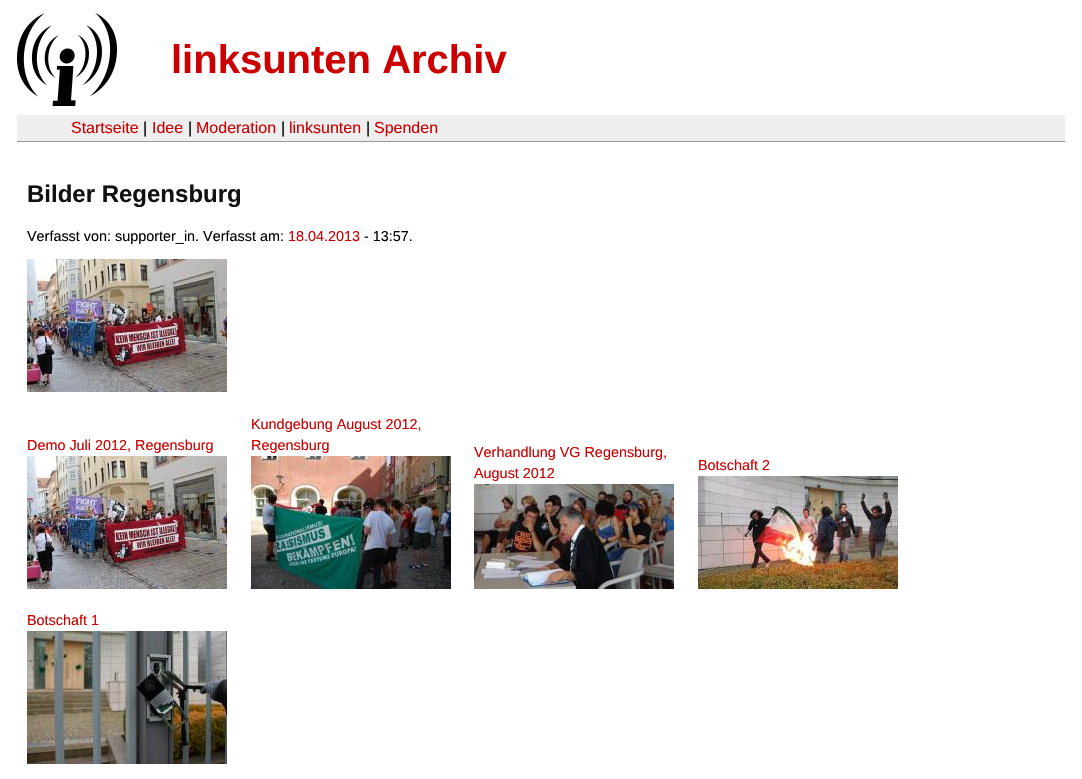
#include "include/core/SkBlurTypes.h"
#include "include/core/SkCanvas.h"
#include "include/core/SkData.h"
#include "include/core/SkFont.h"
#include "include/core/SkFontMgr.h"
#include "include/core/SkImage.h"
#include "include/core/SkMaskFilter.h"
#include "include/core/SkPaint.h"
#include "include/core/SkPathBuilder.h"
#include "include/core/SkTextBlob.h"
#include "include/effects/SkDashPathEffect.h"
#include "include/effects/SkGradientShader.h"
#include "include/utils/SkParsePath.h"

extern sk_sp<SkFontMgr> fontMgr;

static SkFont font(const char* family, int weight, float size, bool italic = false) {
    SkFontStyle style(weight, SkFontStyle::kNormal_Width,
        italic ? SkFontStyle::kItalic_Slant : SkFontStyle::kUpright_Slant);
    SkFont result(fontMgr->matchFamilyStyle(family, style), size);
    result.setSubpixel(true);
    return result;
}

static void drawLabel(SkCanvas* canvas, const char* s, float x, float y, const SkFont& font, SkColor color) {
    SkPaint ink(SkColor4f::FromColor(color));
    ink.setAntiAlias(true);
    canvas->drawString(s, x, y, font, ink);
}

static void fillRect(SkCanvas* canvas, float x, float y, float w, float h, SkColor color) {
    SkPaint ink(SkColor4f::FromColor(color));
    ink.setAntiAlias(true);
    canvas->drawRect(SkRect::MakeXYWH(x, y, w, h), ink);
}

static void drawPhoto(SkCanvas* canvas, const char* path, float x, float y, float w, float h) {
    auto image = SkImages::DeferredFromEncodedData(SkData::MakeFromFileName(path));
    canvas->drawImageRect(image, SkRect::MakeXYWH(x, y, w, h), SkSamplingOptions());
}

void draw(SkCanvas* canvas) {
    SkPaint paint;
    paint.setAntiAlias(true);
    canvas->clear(0xFFFFFFFF);
    drawPhoto(canvas, "assets/img1.png", 17, 13, 100, 93);
    SkFont font1 = font("Liberation Sans", 700, 40);
    drawLabel(canvas, "linksunten Archiv", 171, 73, font1, 0xFFCC0000);
    fillRect(canvas, 17, 115, 1048, 26, 0xFFEFEFEF);
    fillRect(canvas, 17, 141, 1048, 1, 0xFF999999);
    SkFont font2 = font("Liberation Sans", 400, 16);
    drawLabel(canvas, "Startseite", 71, 133, font2, 0xFFCC0000);
    drawLabel(canvas, "|", 143, 133, font2, 0xFF000000);
    drawLabel(canvas, "Idee", 152, 133, font2, 0xFFCC0000);
    drawLabel(canvas, "|", 188, 133, font2, 0xFF000000);
    drawLabel(canvas, "Moderation", 196, 133, font2, 0xFFCC0000);
    drawLabel(canvas, "|", 281, 133, font2, 0xFF000000);
    drawLabel(canvas, "linksunten", 289, 133, font2, 0xFFCC0000);
    drawLabel(canvas, "|", 366, 133, font2, 0xFF000000);
    drawLabel(canvas, "Spenden", 374, 133, font2, 0xFFCC0000);
    SkFont font3 = font("Liberation Sans", 700, 24);
    drawLabel(canvas, "Bilder Regensburg", 27, 202, font3, 0xFF111111);
    SkFont font4 = font("Liberation Sans", 400, 14.4f);
    drawLabel(canvas, "Verfasst von: supporter_in. Verfasst am:", 27, 241, font4, 0xFF000000);
    drawLabel(canvas, "18.04.2013", 288, 241, font4, 0xFFCC0000);
    drawLabel(canvas, "- 13:57.", 364, 241, font4, 0xFF000000);
    drawPhoto(canvas, "assets/img2.png", 27, 259, 200, 133);
    drawLabel(canvas, "Demo Juli 2012, Regensburg", 27, 450, font4, 0xFFCC0000);
    drawPhoto(canvas, "assets/img2.png", 27, 456, 200, 133);
    drawLabel(canvas, "Kundgebung August 2012,", 251, 429, font4, 0xFFCC0000);
    drawLabel(canvas, "Regensburg", 251, 450, font4, 0xFFCC0000);
    drawPhoto(canvas, "assets/img3.png", 251, 456, 200, 133);
    drawLabel(canvas, "Verhandlung VG Regensburg,", 474, 457, font4, 0xFFCC0000);
    drawLabel(canvas, "August 2012", 474, 478, font4, 0xFFCC0000);
    drawPhoto(canvas, "assets/img4.png", 474, 484, 200, 105);
    drawLabel(canvas, "Botschaft 2", 698, 470, font4, 0xFFCC0000);
    drawPhoto(canvas, "assets/img5.png", 698, 476, 200, 113);
    drawLabel(canvas, "Botschaft 1", 27, 625, font4, 0xFFCC0000);
    drawPhoto(canvas, "assets/img6.png", 27, 631, 200, 133);
}
